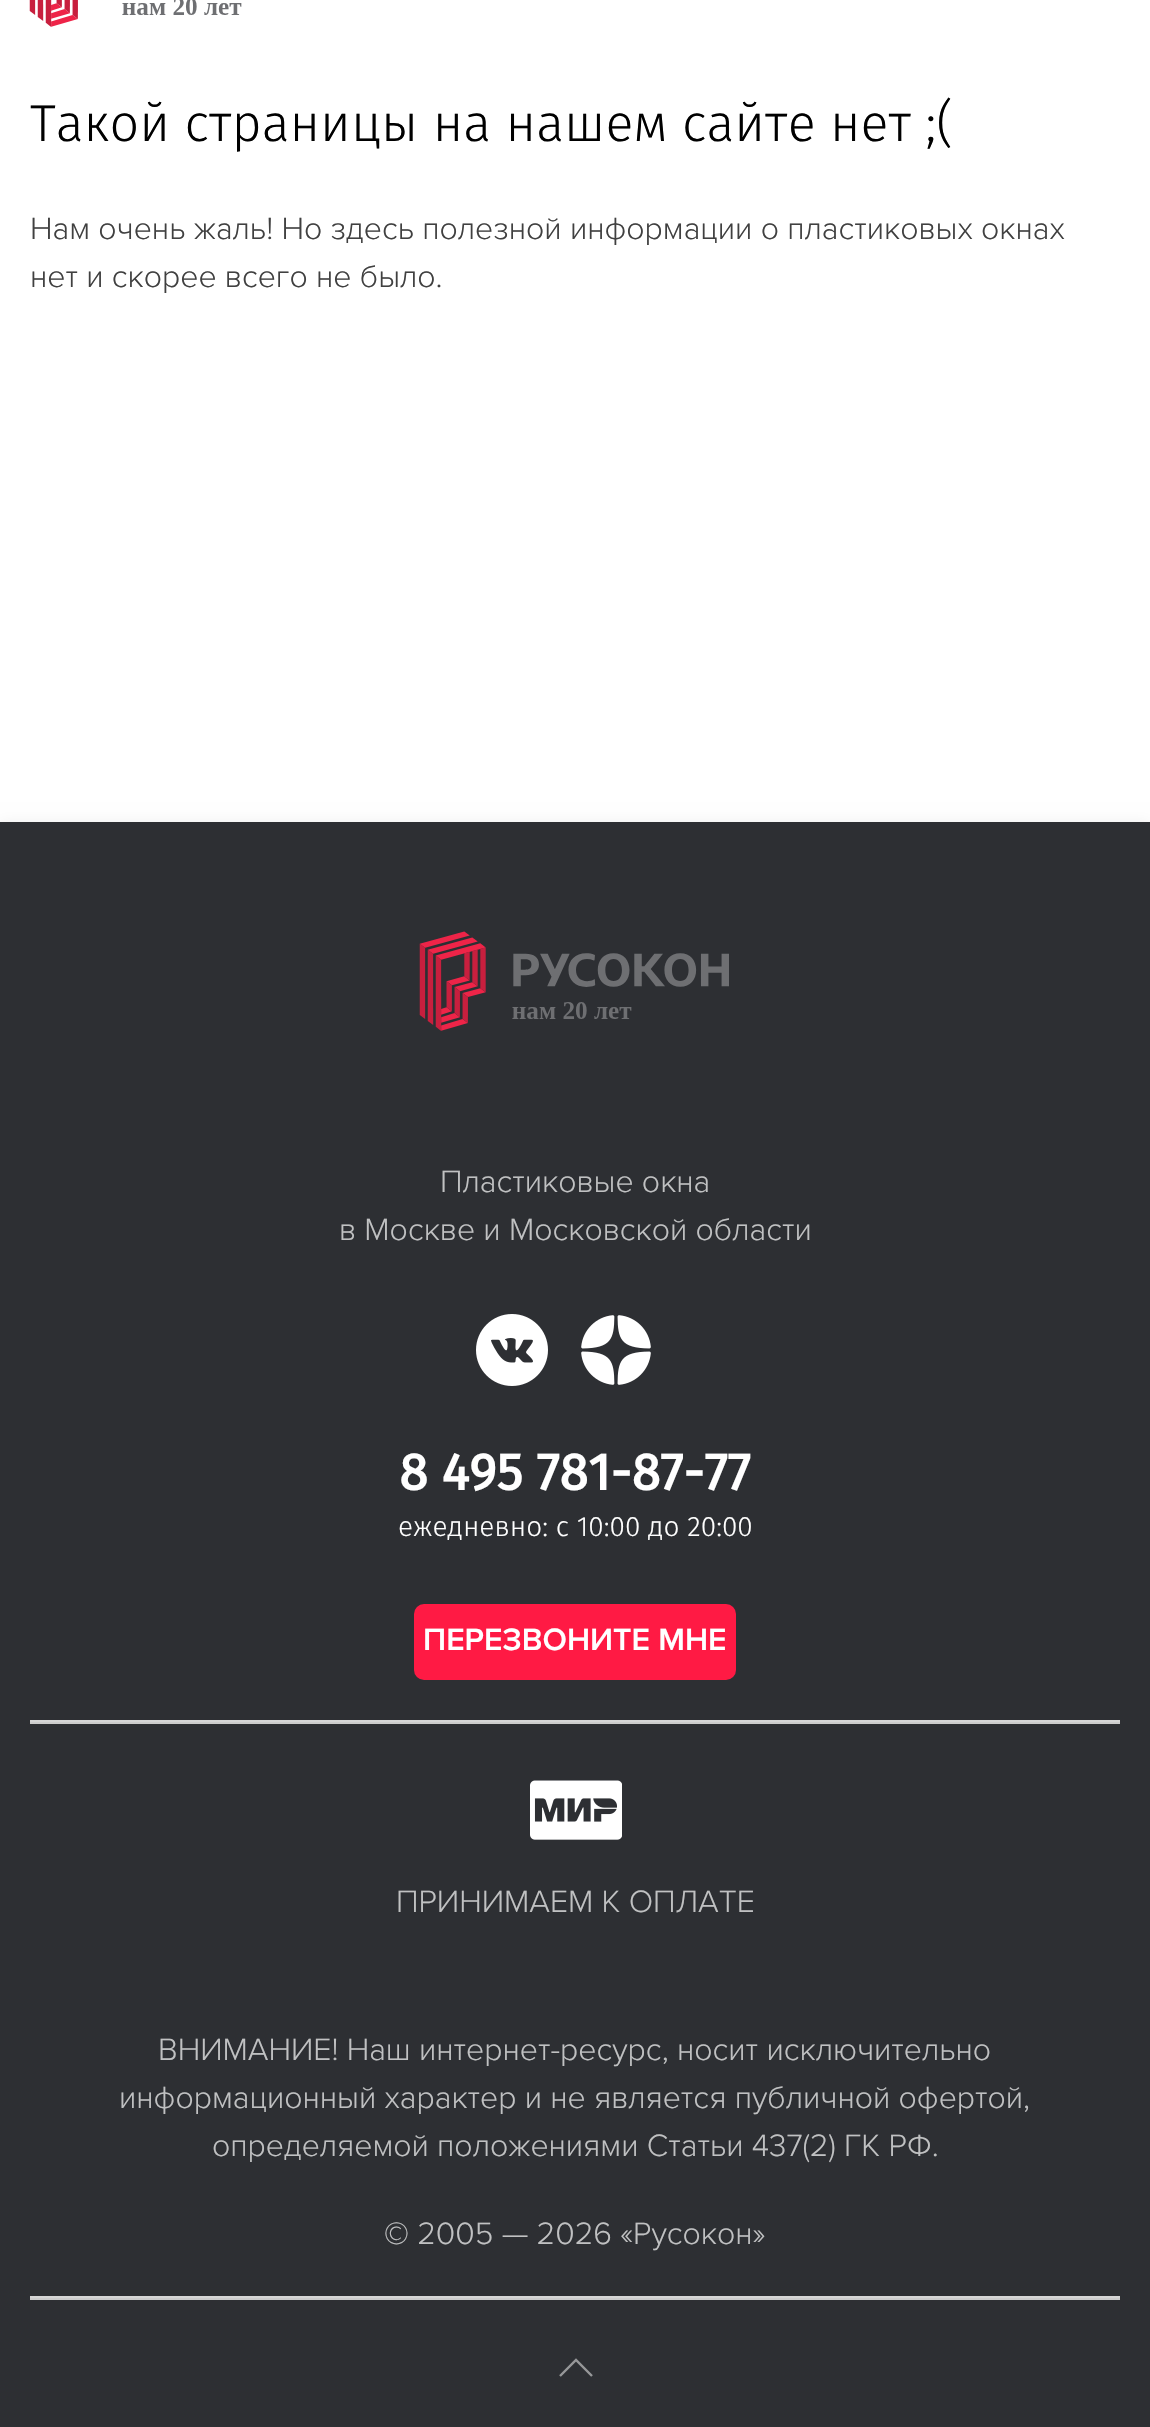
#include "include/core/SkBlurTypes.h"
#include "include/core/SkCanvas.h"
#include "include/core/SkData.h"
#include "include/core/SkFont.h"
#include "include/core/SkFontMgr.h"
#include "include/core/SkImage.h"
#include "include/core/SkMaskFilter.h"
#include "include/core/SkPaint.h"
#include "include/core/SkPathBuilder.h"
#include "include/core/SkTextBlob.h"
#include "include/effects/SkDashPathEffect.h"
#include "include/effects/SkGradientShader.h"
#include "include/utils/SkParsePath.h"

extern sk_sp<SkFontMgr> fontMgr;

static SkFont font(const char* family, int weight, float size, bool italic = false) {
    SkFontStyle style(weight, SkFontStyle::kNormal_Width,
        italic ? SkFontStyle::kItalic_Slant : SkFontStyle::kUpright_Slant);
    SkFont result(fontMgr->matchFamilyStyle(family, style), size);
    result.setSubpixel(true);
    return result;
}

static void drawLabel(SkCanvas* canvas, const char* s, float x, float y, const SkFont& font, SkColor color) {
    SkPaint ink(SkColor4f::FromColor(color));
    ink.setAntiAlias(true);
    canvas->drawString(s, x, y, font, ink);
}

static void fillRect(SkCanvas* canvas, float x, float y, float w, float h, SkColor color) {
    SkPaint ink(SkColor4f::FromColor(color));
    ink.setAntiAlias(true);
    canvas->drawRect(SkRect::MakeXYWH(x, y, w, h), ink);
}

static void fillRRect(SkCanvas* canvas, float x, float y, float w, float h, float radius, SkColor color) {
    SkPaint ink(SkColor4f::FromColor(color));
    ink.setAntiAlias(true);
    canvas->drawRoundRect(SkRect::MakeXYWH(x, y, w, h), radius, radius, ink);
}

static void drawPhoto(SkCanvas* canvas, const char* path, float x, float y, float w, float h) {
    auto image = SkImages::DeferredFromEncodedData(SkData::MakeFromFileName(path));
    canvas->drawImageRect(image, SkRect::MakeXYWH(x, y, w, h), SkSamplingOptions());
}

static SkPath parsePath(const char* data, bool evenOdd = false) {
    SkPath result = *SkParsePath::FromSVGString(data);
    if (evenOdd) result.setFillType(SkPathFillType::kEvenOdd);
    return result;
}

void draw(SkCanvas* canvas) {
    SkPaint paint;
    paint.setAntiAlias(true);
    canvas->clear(0xFFFFFFFF);
    drawPhoto(canvas, "assets/img1.png", 29, 0, 213, 27);
    SkFont font1 = font("Fira Sans", 300, 52);
    drawLabel(canvas, "Такой страницы на нашем сайте нет ;(", 30, 141, font1, 0xFF000000);
    SkFont font2 = font("Proxima Nova", 400, 32);
    drawLabel(canvas, "Нам очень жаль! Но здесь полезной информации о пластиковых окнах", 30, 239, font2, 0xFF404040);
    drawLabel(canvas, "нет и скорее всего не было.", 30, 287, font2, 0xFF404040);
    paint.setColor(0x1A000000);
    paint.setMaskFilter(SkMaskFilter::MakeBlur(kNormal_SkBlurStyle, 8));
    canvas->drawRect(SkRect::MakeXYWH(0, 826, 1150, 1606), paint);
    paint.setMaskFilter(nullptr);
    fillRect(canvas, 0, 822, 1150, 1605, 0xFF2D2F33);
    drawPhoto(canvas, "assets/img2.png", 419, 931, 310, 100);
    drawLabel(canvas, "Пластиковые окна", 440, 1192, font2, 0xFFC0C1C2);
    drawLabel(canvas, "в Москве и Московской области", 339, 1240, font2, 0xFFC0C1C2);
    drawPhoto(canvas, "assets/img3.png", 476, 1314, 72, 72);
    drawPhoto(canvas, "assets/img4.png", 581, 1315, 70, 70);
    SkFont font3 = font("Fira Sans", 700, 52);
    drawLabel(canvas, "8 495 781-87-77", 399, 1490, font3, 0xFFFFFFFF);
    SkFont font4 = font("Fira Sans", 300, 28);
    drawLabel(canvas, "ежедневно: с 10:00 до 20:00", 398, 1536, font4, 0xFFFFFFFF);
    fillRRect(canvas, 414, 1604, 322, 76, 10, 0xFFFF1A44);
    SkFont font5 = font("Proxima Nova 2", 400, 32);
    drawLabel(canvas, "ПЕРЕЗВОНИТЕ МНЕ", 423, 1650, font5, 0xFFFFFFFF);
    fillRect(canvas, 30, 1722, 1090, 2, 0xFFCCCCCC);
    fillRect(canvas, 30, 1720, 1090, 2, 0xFFD6D6D6);
    drawPhoto(canvas, "assets/img5.png", 530, 1780, 92, 60);
    drawLabel(canvas, "ПРИНИМАЕМ К ОПЛАТЕ", 396, 1912, font2, 0xFFC0C1C2);
    drawLabel(canvas, "ВНИМАНИЕ! Наш интернет-ресурс, носит исключительно", 158, 2060, font2, 0xFFC0C1C2);
    drawLabel(canvas, "информационный характер и не является публичной офертой,", 119, 2108, font2, 0xFFC0C1C2);
    drawLabel(canvas, "определяемой положениями Статьи 437(2) ГК РФ.", 212, 2156, font2, 0xFFC0C1C2);
    drawLabel(canvas, "© 2005 — 2026 «Русокон»", 384, 2244, font2, 0xFFC0C1C2);
    fillRect(canvas, 30, 2298, 1090, 2, 0xFFCCCCCC);
    fillRect(canvas, 30, 2296, 1090, 2, 0xFFD6D6D6);
    paint.setStroke(true);
    paint.setStrokeWidth(2.4f);
    paint.setColor(0xFF969799);
    canvas->drawPath(parsePath("M560 2376L576 2360L592 2376"), paint);
}
